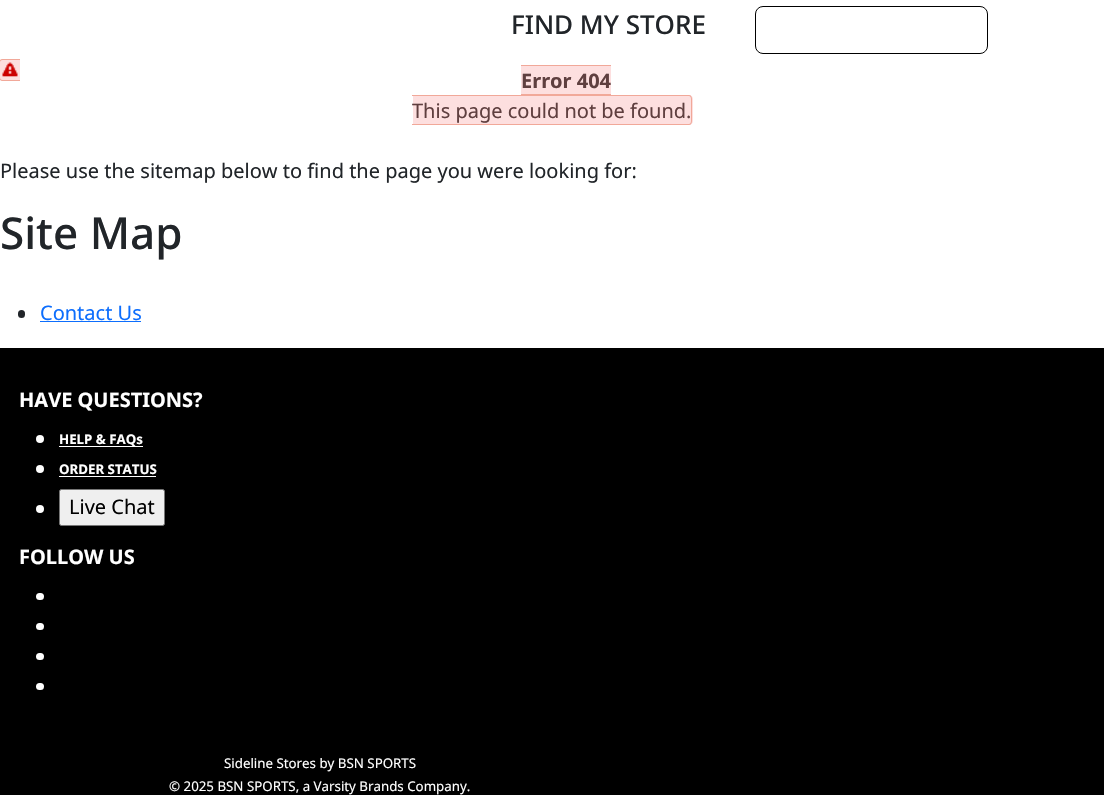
#include "include/core/SkBlurTypes.h"
#include "include/core/SkCanvas.h"
#include "include/core/SkData.h"
#include "include/core/SkFont.h"
#include "include/core/SkFontMgr.h"
#include "include/core/SkImage.h"
#include "include/core/SkMaskFilter.h"
#include "include/core/SkPaint.h"
#include "include/core/SkPathBuilder.h"
#include "include/core/SkTextBlob.h"
#include "include/effects/SkDashPathEffect.h"
#include "include/effects/SkGradientShader.h"
#include "include/utils/SkParsePath.h"

extern sk_sp<SkFontMgr> fontMgr;

static SkFont font(const char* family, int weight, float size, bool italic = false) {
    SkFontStyle style(weight, SkFontStyle::kNormal_Width,
        italic ? SkFontStyle::kItalic_Slant : SkFontStyle::kUpright_Slant);
    SkFont result(fontMgr->matchFamilyStyle(family, style), size);
    result.setSubpixel(true);
    return result;
}

static void drawLabel(SkCanvas* canvas, const char* s, float x, float y, const SkFont& font, SkColor color) {
    SkPaint ink(SkColor4f::FromColor(color));
    ink.setAntiAlias(true);
    canvas->drawString(s, x, y, font, ink);
}

static void fillRect(SkCanvas* canvas, float x, float y, float w, float h, SkColor color) {
    SkPaint ink(SkColor4f::FromColor(color));
    ink.setAntiAlias(true);
    canvas->drawRect(SkRect::MakeXYWH(x, y, w, h), ink);
}

static void fillRRect(SkCanvas* canvas, float x, float y, float w, float h, float radius, SkColor color) {
    SkPaint ink(SkColor4f::FromColor(color));
    ink.setAntiAlias(true);
    canvas->drawRoundRect(SkRect::MakeXYWH(x, y, w, h), radius, radius, ink);
}

static void drawPhoto(SkCanvas* canvas, const char* path, float x, float y, float w, float h) {
    auto image = SkImages::DeferredFromEncodedData(SkData::MakeFromFileName(path));
    canvas->drawImageRect(image, SkRect::MakeXYWH(x, y, w, h), SkSamplingOptions());
}

static SkPath parsePath(const char* data, bool evenOdd = false) {
    SkPath result = *SkParsePath::FromSVGString(data);
    if (evenOdd) result.setFillType(SkPathFillType::kEvenOdd);
    return result;
}

void draw(SkCanvas* canvas) {
    SkPaint paint;
    paint.setAntiAlias(true);
    canvas->clear(0xFFFFFFFF);
    SkFont font1 = font("Noto Sans", 500, 26);
    drawLabel(canvas, "FIND MY STORE", 511, 34, font1, 0xFF212529);
    paint.setStroke(true);
    paint.setStrokeWidth(1);
    paint.setColor(0xFF000000);
    canvas->drawRoundRect(SkRect::MakeXYWH(755.5f, 6.5f, 232, 47), 7.5f, 7.5f, paint);
    paint.setStroke(false);
    paint.setColor(0xFFFDDFDF);
    canvas->drawPath(parsePath("M3 59H20V81H3C1 81-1 79-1 77V63C-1 61 1 59 3 59Z"), paint);
    paint.setColor(0xFFF1A899);
    canvas->drawPath(parsePath("M2.5 59H20V81H2.5C.5 81-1 79.5-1 77.5V62.5C-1 60.5 .5 59 2.5 59ZM2.5 60H20V80H2.5C1 80 0 79 0 77.5V62.5C0 61 1 60 2.5 60Z", true), paint);
    fillRect(canvas, 521, 66, 90, 28, 0xFFFDDFDF);
    fillRect(canvas, 521, 65, 90, 1, 0xFFF1A899);
    fillRect(canvas, 521, 94, 90, 1, 0xFFF1A899);
    paint.setColor(0xFFFDDFDF);
    canvas->drawPath(parsePath("M413 95H689C691 95 693 97 693 99V121C693 123 691 125 689 125H413Z"), paint);
    paint.setColor(0xFFF1A899);
    canvas->drawPath(parsePath("M412 95H689C691 95 692 97 692 99V121C692 123 691 125 689 125H412ZM412 96H689C690 96 691 97 691 99V121C691 123 690 124 689 124H412Z", true), paint);
    drawPhoto(canvas, "assets/img1.png", 2, 62, 16, 15);
    SkFont font2 = font("Noto Sans", 700, 20);
    drawLabel(canvas, "Error 404", 521, 88, font2, 0xFF5F3F3F);
    SkFont font3 = font("Noto Sans", 400, 20);
    drawLabel(canvas, "This page could not be found.", 412, 118, font3, 0xFF5F3F3F);
    drawLabel(canvas, "Please use the sitemap below to find the page you were looking for:", 0, 178, font3, 0xFF212529);
    SkFont font4 = font("Noto Sans", 500, 44);
    drawLabel(canvas, "Site Map", 0, 249, font4, 0xFF212529);
    fillRRect(canvas, 18, 310, 7, 8, 3.5f, 0xFF212529);
    drawLabel(canvas, "Contact Us", 40, 320, font3, 0xFF0D6EFD);
    fillRect(canvas, 40, 321, 101, 1, 0xFF0D6EFD);
    fillRect(canvas, 0, 348, 1104, 447, 0xFF000000);
    drawLabel(canvas, "HAVE QUESTIONS?", 19, 407, font2, 0xFFFFFFFF);
    paint.setColor(0xFFFFFFFF);
    canvas->drawCircle(40, 439, 4, paint);
    fillRect(canvas, 59, 446, 84, 1, 0xFFFFFFFF);
    SkFont font5 = font("Noto Sans", 700, 13.3f);
    drawLabel(canvas, "HELP & FAQs", 59, 444, font5, 0xFFFFFFFF);
    canvas->drawCircle(40, 469, 4, paint);
    drawLabel(canvas, "ORDER STATUS", 59, 474, font5, 0xFFFFFFFF);
    fillRect(canvas, 59, 476, 97, 1, 0xFFFFFFFF);
    canvas->drawCircle(40, 509, 4, paint);
    paint.setColor(0xFFEFEFEF);
    canvas->drawRoundRect(SkRect::MakeXYWH(59.5f, 489.5f, 105, 36), 2, 2, paint);
    paint.setStroke(true);
    paint.setColor(0xFF767676);
    canvas->drawRoundRect(SkRect::MakeXYWH(59.5f, 489.5f, 105, 36), 2, 2, paint);
    drawLabel(canvas, "Live Chat", 69, 514, font3, 0xFF000000);
    drawLabel(canvas, "FOLLOW US", 19, 564, font2, 0xFFFFFFFF);
    fillRRect(canvas, 36, 593, 8, 7, 3.5f, 0xFFFFFFFF);
    fillRRect(canvas, 36, 623, 8, 7, 3.5f, 0xFFFFFFFF);
    fillRRect(canvas, 36, 653, 8, 7, 3.5f, 0xFFFFFFFF);
    fillRRect(canvas, 36, 683, 8, 7, 3.5f, 0xFFFFFFFF);
    SkFont font6 = font("Noto Sans", 400, 13.3f);
    drawLabel(canvas, "Sideline Stores by BSN SPORTS", 224, 768, font6, 0xFFFFFFFF);
    drawLabel(canvas, "© 2025 BSN SPORTS, a Varsity Brands Company.", 169, 791, font6, 0xFFFFFFFF);
}
